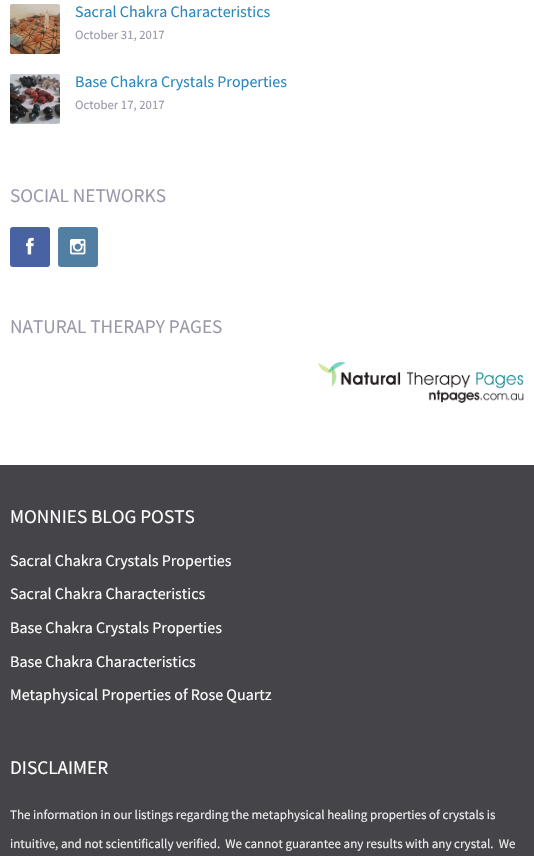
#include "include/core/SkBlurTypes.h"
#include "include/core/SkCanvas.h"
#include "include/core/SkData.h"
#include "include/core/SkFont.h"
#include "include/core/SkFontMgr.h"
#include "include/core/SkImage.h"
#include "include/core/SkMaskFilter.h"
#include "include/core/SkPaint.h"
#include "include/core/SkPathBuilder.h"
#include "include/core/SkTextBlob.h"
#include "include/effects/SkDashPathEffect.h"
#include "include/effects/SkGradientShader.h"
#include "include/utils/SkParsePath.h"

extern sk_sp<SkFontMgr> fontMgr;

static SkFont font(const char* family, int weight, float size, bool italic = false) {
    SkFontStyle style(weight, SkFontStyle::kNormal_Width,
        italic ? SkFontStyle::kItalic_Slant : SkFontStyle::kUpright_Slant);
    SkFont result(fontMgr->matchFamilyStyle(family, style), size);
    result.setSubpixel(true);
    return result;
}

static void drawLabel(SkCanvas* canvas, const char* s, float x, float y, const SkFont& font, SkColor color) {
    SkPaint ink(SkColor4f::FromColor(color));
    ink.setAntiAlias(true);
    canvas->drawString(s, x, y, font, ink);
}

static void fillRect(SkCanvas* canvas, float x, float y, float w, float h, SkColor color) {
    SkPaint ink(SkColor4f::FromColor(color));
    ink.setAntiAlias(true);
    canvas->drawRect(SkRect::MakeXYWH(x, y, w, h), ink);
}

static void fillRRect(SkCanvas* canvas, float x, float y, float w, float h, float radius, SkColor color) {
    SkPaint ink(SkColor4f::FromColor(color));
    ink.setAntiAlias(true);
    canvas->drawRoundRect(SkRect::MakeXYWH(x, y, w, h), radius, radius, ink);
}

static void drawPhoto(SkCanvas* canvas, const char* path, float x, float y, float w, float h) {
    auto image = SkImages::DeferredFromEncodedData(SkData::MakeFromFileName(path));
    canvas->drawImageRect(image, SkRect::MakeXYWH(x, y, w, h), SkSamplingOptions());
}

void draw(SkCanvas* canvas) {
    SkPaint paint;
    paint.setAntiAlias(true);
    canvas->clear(0xFFFFFFFF);
    drawPhoto(canvas, "assets/img1.png", 10, 4, 50, 50);
    SkFont font1 = font("Source Sans Pro", 400, 16);
    drawLabel(canvas, "Sacral Chakra Characteristics", 75, 17, font1, 0xFF2A88BF);
    SkFont font2 = font("Source Sans Pro", 400, 12.75f);
    drawLabel(canvas, "October 31, 2017", 75, 39, font2, 0xFF9999AA);
    drawPhoto(canvas, "assets/img2.png", 10, 74, 50, 50);
    drawLabel(canvas, "Base Chakra Crystals Properties", 75, 87, font1, 0xFF2A88BF);
    drawLabel(canvas, "October 17, 2017", 75, 109, font2, 0xFF9999AA);
    SkFont font3 = font("Source Sans Pro", 400, 19.25f);
    drawLabel(canvas, "SOCIAL NETWORKS", 10, 202, font3, 0xFF9999AA);
    fillRRect(canvas, 10, 227, 40, 40, 3, 0xFF4862A3);
    drawPhoto(canvas, "assets/img3.png", 26, 237, 8, 18);
    fillRRect(canvas, 58, 227, 40, 40, 3, 0xFF517FA4);
    drawPhoto(canvas, "assets/img4.png", 70, 239, 16, 16);
    drawLabel(canvas, "NATURAL THERAPY PAGES", 10, 333, font3, 0xFF9999AA);
    drawPhoto(canvas, "assets/img5.png", 318, 362, 206, 41);
    fillRect(canvas, 0, 465, 534, 391, 0xFF444449);
    drawLabel(canvas, "MONNIES BLOG POSTS", 10, 523, font3, 0xFFFFFFFF);
    drawLabel(canvas, "Sacral Chakra Crystals Properties", 10, 566, font1, 0xFFFFFFFF);
    drawLabel(canvas, "Sacral Chakra Characteristics", 10, 599, font1, 0xFFFFFFFF);
    drawLabel(canvas, "Base Chakra Crystals Properties", 10, 633, font1, 0xFFFFFFFF);
    drawLabel(canvas, "Base Chakra Characteristics", 10, 667, font1, 0xFFFFFFFF);
    drawLabel(canvas, "Metaphysical Properties of Rose Quartz", 10, 700, font1, 0xFFFFFFFF);
    drawLabel(canvas, "DISCLAIMER", 10, 774, font3, 0xFFFFFFFF);
    SkFont font4 = font("Source Sans Pro", 400, 13);
    drawLabel(canvas, "The information in our listings regarding the metaphysical healing properties of crystals is", 10, 819, font4, 0xFFEEEEEE);
    drawLabel(canvas, "intuitive, and not scientifically verified.  We cannot guarantee any results with any crystal.  We", 10, 848, font4, 0xFFEEEEEE);
}
